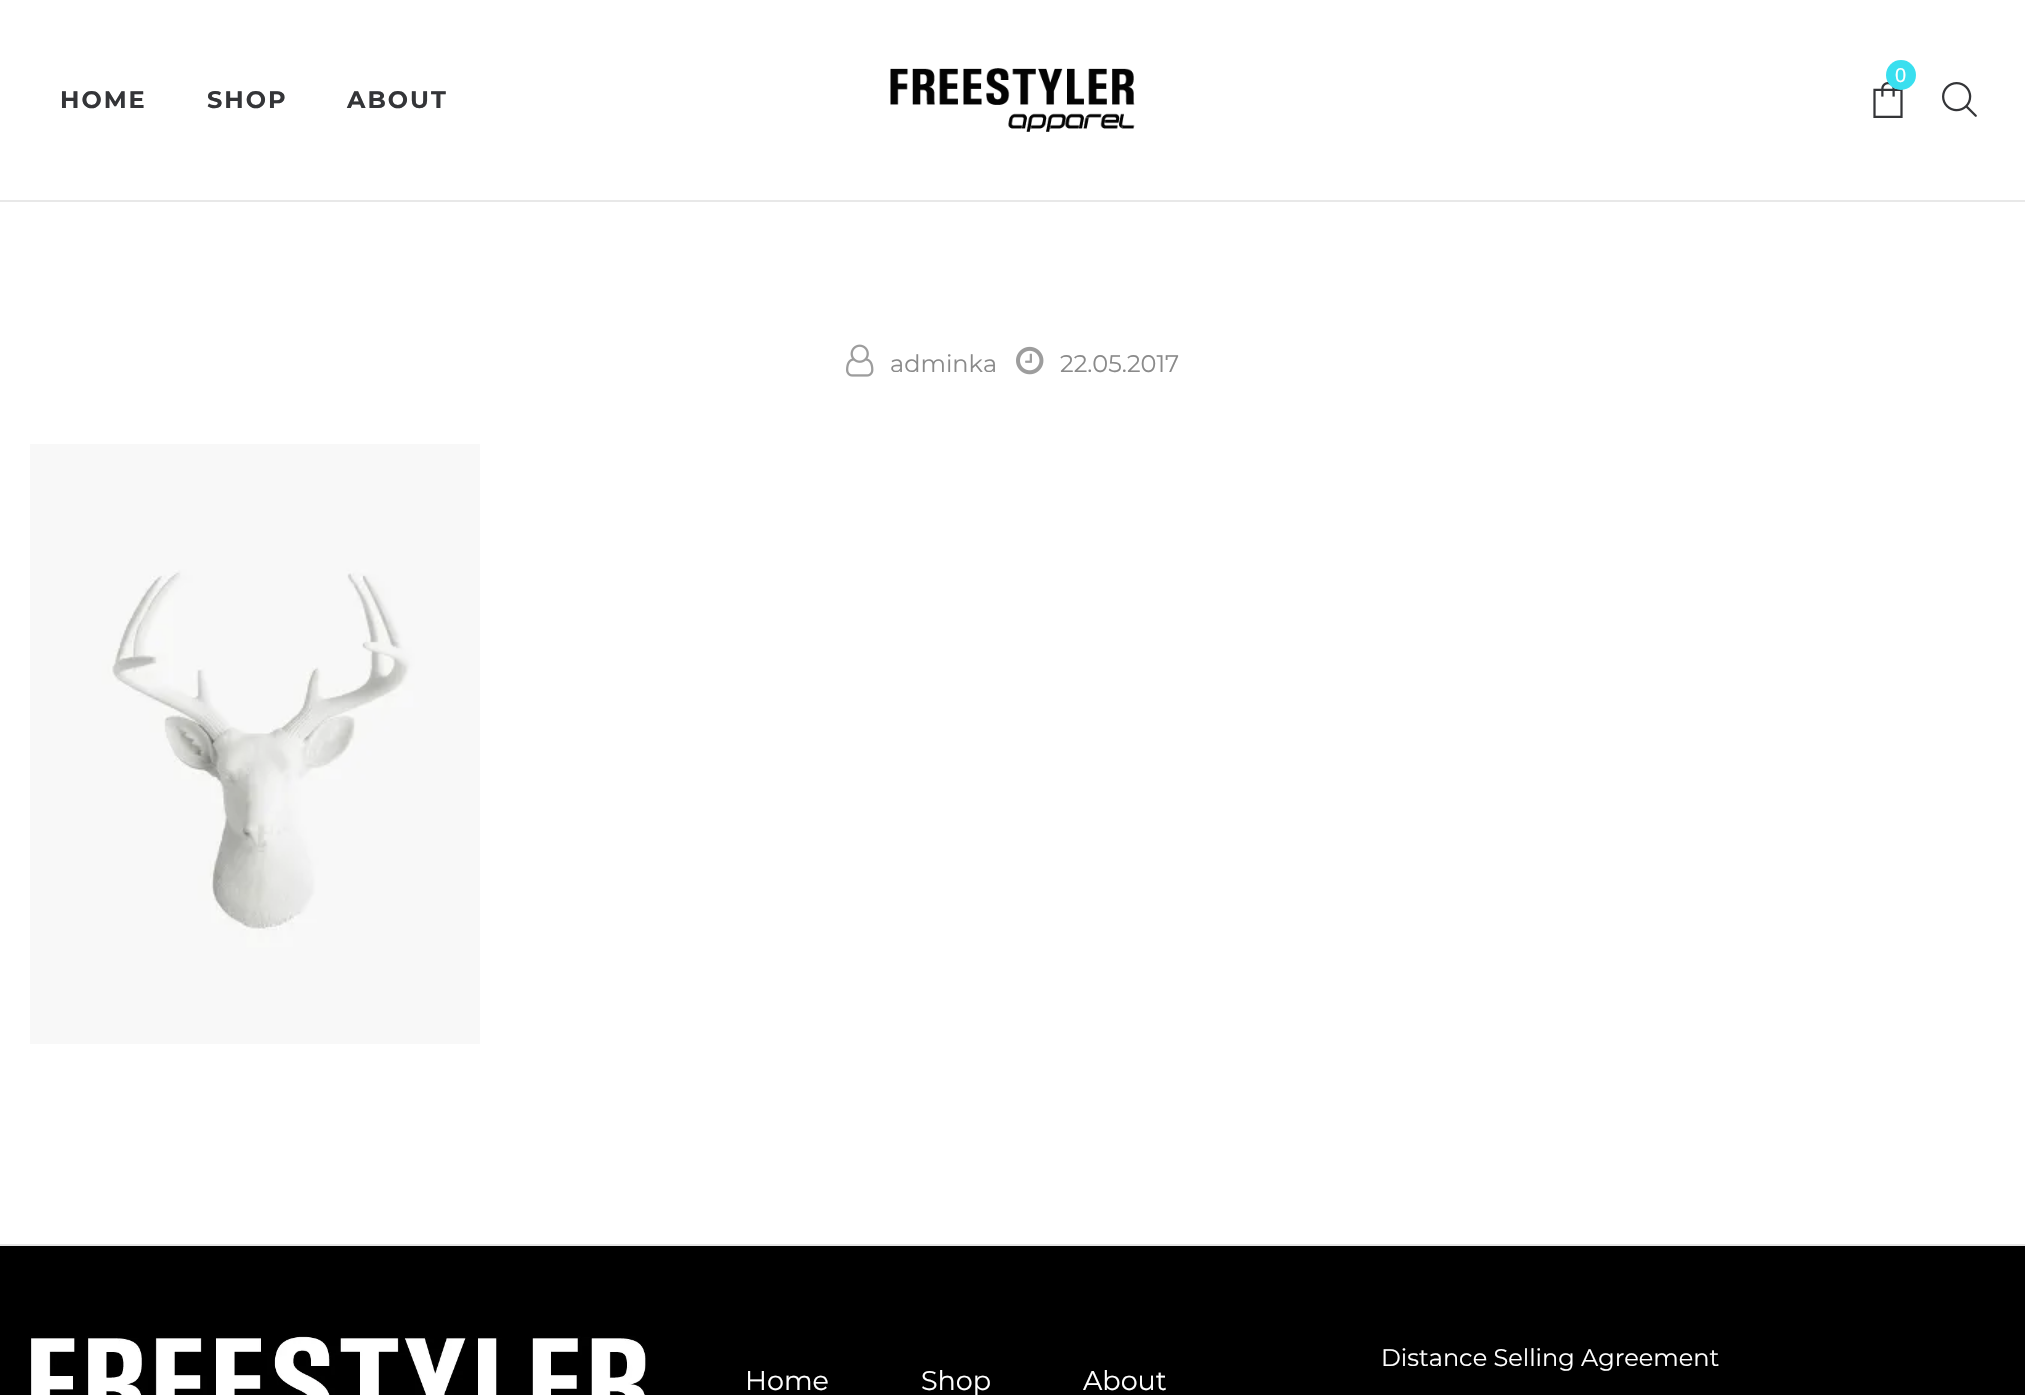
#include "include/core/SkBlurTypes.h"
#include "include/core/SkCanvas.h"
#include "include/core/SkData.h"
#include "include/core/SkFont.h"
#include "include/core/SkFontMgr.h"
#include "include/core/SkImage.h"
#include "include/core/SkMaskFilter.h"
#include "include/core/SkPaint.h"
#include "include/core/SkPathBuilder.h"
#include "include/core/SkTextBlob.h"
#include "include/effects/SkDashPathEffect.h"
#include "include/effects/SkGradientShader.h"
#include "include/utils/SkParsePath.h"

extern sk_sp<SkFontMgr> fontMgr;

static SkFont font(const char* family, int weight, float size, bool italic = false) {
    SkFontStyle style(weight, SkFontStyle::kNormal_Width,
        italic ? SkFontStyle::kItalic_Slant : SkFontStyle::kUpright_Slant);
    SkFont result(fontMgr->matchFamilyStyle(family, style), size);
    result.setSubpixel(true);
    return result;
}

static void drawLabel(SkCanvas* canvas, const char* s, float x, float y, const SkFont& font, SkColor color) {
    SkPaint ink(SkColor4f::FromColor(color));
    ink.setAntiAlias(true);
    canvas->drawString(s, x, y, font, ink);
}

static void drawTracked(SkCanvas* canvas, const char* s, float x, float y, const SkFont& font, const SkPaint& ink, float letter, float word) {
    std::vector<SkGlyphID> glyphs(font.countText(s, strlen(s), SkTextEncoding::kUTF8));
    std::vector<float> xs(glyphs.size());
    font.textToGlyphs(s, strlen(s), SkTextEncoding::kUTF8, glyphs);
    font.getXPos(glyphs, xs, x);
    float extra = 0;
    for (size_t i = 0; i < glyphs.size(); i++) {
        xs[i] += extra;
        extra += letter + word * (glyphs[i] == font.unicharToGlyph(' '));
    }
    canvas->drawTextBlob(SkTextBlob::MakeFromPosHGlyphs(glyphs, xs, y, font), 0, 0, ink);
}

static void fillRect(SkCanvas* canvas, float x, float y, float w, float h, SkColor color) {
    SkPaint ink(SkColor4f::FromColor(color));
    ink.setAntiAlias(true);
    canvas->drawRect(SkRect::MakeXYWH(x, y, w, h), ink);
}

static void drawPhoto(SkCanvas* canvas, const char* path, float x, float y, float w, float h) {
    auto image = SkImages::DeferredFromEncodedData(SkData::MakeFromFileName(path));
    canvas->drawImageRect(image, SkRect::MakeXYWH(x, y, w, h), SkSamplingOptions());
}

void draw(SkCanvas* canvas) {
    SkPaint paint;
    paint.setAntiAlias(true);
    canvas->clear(0xFFFFFFFF);
    drawPhoto(canvas, "assets/img1.png", 890, 68, 245, 64);
    drawPhoto(canvas, "assets/img2.png", 1873, 82, 30, 36);
    paint.setColor(0xFF39DFEF);
    canvas->drawCircle(1901, 75, 15, paint);
    SkFont font1 = font("Liberation Sans", 400, 20);
    drawLabel(canvas, "0", 1895, 82, font1, 0xFFFFFFFF);
    drawPhoto(canvas, "assets/img3.png", 1942, 82, 35, 35);
    SkFont font2 = font("Montserrat", 700, 24);
    paint.setColor(0xFF343538);
    drawTracked(canvas, "HOME", 60, 108, font2, paint, 2, 0);
    drawTracked(canvas, "SHOP", 207, 108, font2, paint, 2, 0);
    drawTracked(canvas, "ABOUT", 347, 108, font2, paint, 2, 0);
    fillRect(canvas, 0, 200, 2025, 2, 0xFFE8E8E8);
    drawPhoto(canvas, "assets/img4.png", 846, 344, 28, 33);
    SkFont font3 = font("Montserrat", 400, 24);
    drawLabel(canvas, "adminka", 890, 372, font3, 0xFF8A8A8A);
    drawPhoto(canvas, "assets/img5.png", 1016, 346, 28, 29);
    drawLabel(canvas, "22.05.2017", 1060, 372, font3, 0xFF8A8A8A);
    drawPhoto(canvas, "assets/img6.png", 30, 444, 450, 600);
    fillRect(canvas, 0, 1246, 2025, 149, 0xFF000000);
    fillRect(canvas, 0, 1244, 2025, 2, 0xFFE5E5E5);
    drawPhoto(canvas, "assets/img7.png", 31, 1336, 615, 59);
    drawLabel(canvas, "Distance Selling Agreement", 1381, 1366, font3, 0xFFFFFFFF);
    SkFont font4 = font("Montserrat", 400, 27);
    drawLabel(canvas, "Home", 745, 1390, font4, 0xFFFFFFFF);
    drawLabel(canvas, "Shop", 921, 1390, font4, 0xFFFFFFFF);
    drawLabel(canvas, "About", 1083, 1390, font4, 0xFFFFFFFF);
}
